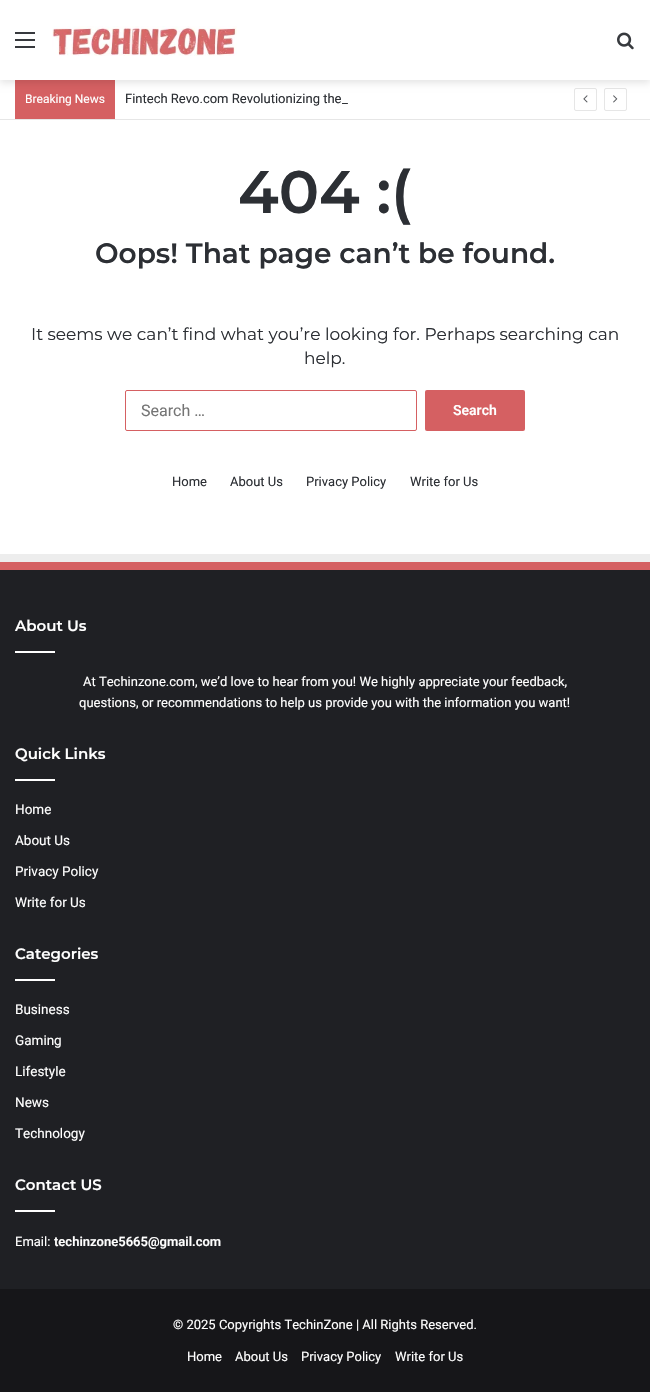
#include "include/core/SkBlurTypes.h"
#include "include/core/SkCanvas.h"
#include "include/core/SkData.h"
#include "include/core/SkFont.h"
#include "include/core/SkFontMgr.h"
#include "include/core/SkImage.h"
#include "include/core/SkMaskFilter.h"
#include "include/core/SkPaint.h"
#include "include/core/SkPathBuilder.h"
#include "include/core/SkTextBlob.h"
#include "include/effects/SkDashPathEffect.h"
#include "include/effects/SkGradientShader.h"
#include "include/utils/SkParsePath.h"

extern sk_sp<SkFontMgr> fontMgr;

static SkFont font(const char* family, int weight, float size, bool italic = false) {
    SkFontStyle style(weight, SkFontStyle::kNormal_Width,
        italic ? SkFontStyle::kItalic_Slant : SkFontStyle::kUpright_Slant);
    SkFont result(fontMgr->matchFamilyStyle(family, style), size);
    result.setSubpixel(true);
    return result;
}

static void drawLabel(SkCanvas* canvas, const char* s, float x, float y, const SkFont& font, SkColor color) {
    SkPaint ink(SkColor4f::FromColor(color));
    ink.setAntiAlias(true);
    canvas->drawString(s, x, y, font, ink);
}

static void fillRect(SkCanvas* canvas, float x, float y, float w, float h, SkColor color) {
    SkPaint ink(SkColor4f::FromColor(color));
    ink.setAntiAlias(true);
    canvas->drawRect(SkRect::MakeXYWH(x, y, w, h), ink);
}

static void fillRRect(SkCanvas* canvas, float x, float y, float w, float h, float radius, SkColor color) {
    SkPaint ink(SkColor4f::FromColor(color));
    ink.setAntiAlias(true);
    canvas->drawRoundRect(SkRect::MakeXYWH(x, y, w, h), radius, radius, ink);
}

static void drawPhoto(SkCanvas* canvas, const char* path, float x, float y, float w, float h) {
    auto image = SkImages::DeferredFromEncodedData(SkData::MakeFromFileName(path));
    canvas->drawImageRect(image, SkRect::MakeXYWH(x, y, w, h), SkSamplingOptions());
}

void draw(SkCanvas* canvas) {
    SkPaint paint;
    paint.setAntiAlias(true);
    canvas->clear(0xFFFFFFFF);
    fillRect(canvas, 15, 80, 100, 39, 0xFFD56062);
    paint.setStroke(true);
    paint.setStrokeWidth(1);
    paint.setColor(0xFFE6E6E6);
    canvas->drawRoundRect(SkRect::MakeXYWH(574.5f, 88.5f, 22, 22), 1.5f, 1.5f, paint);
    canvas->drawRoundRect(SkRect::MakeXYWH(604.5f, 88.5f, 22, 22), 1.5f, 1.5f, paint);
    paint.setStroke(false);
    paint.setColor(0x1A000000);
    paint.setMaskFilter(SkMaskFilter::MakeBlur(kNormal_SkBlurStyle, 3.5f));
    canvas->drawRect(SkRect::MakeXYWH(0, 3, 650, 80), paint);
    paint.setMaskFilter(nullptr);
    fillRect(canvas, 0, 0, 650, 80, 0xFFFFFFFF);
    fillRect(canvas, 15, 39, 20, 2, 0xFF37393E);
    fillRect(canvas, 15, 32, 20, 2, 0xFF37393E);
    fillRect(canvas, 15, 46, 20, 2, 0xFF37393E);
    drawPhoto(canvas, "assets/img1.png", 52, 26, 185, 30);
    drawPhoto(canvas, "assets/img2.png", 617, 32, 17, 18);
    fillRect(canvas, 0, 119, 650, 1, 0xFFE6E6E6);
    SkFont font1 = font("Roboto", 400, 12);
    drawLabel(canvas, "Breaking News", 25, 103, font1, 0xFFFFFFFF);
    SkFont font2 = font("Roboto", 400, 13);
    drawLabel(canvas, "Fintech Revo.com Revolutionizing the", 125, 103, font2, 0xFF2C2F34);
    drawLabel(canvas, "_", 342, 103, font2, 0xFF2C2F34);
    drawPhoto(canvas, "assets/img3.png", 583, 95, 5, 8);
    drawPhoto(canvas, "assets/img4.png", 613, 95, 5, 8);
    SkFont font3 = font("Montserrat", 600, 60);
    drawLabel(canvas, "404 :(", 238, 213, font3, 0xFF2C2F34);
    SkFont font4 = font("Montserrat", 600, 28);
    drawLabel(canvas, "Oops! That page can’t be found.", 95, 263, font4, 0xFF2C2F34);
    SkFont font5 = font("Montserrat", 400, 17);
    drawLabel(canvas, "It seems we can’t find what you’re looking for. Perhaps searching can", 31, 340, font5, 0xFF2C2F34);
    drawLabel(canvas, "help.", 304, 364, font5, 0xFF2C2F34);
    paint.setStroke(true);
    paint.setColor(0xFFD56062);
    canvas->drawRoundRect(SkRect::MakeXYWH(125.5f, 390.5f, 291, 40), 1.5f, 1.5f, paint);
    SkFont font6 = font("Roboto", 400, 16);
    drawLabel(canvas, "Search …", 141, 416, font6, 0xFF757575);
    fillRRect(canvas, 425, 390, 100, 41, 2, 0xFFD56062);
    SkFont font7 = font("Roboto", 600, 14);
    drawLabel(canvas, "Search", 453, 415, font7, 0xFFFFFFFF);
    drawLabel(canvas, "Home", 172, 486, font2, 0xFF2C2F34);
    drawLabel(canvas, "About Us", 230, 486, font2, 0xFF2C2F34);
    drawLabel(canvas, "Privacy Policy", 306, 486, font2, 0xFF2C2F34);
    drawLabel(canvas, "Write for Us", 410, 486, font2, 0xFF2C2F34);
    fillRect(canvas, 0, 570, 650, 719, 0xFF1F2024);
    fillRect(canvas, 0, 554, 650, 8, 0xFFEDEDED);
    fillRect(canvas, 0, 562, 650, 8, 0xFFD56062);
    SkFont font8 = font("Montserrat", 600, 15);
    drawLabel(canvas, "About Us", 15, 631, font8, 0xFFFFFFFF);
    fillRect(canvas, 15, 651, 40, 2, 0xFFFFFFFF);
    drawLabel(canvas, "At Techinzone.com, we’d love to hear from you! We highly appreciate your feedback,", 83, 686, font2, 0xFFFFFFFF);
    drawLabel(canvas, "questions, or recommendations to help us provide you with the information you want!", 79, 707, font2, 0xFFFFFFFF);
    drawLabel(canvas, "Quick Links", 15, 759, font8, 0xFFFFFFFF);
    fillRect(canvas, 15, 779, 40, 2, 0xFFFFFFFF);
    SkFont font9 = font("Roboto", 400, 13.5f);
    drawLabel(canvas, "Home", 15, 814, font9, 0xFFFFFFFF);
    drawLabel(canvas, "About Us", 15, 845, font9, 0xFFFFFFFF);
    drawLabel(canvas, "Privacy Policy", 15, 876, font9, 0xFFFFFFFF);
    drawLabel(canvas, "Write for Us", 15, 907, font9, 0xFFFFFFFF);
    drawLabel(canvas, "Categories", 15, 959, font8, 0xFFFFFFFF);
    fillRect(canvas, 15, 979, 40, 2, 0xFFFFFFFF);
    drawLabel(canvas, "Business", 15, 1014, font9, 0xFFFFFFFF);
    drawLabel(canvas, "Gaming", 15, 1045, font9, 0xFFFFFFFF);
    drawLabel(canvas, "Lifestyle", 15, 1076, font9, 0xFFFFFFFF);
    drawLabel(canvas, "News", 15, 1107, font9, 0xFFFFFFFF);
    drawLabel(canvas, "Technology", 15, 1138, font9, 0xFFFFFFFF);
    drawLabel(canvas, "Contact US", 15, 1190, font8, 0xFFFFFFFF);
    fillRect(canvas, 15, 1210, 40, 2, 0xFFFFFFFF);
    drawLabel(canvas, "Email:", 15, 1246, font2, 0xFFFFFFFF);
    SkFont font10 = font("Roboto", 600, 13);
    drawLabel(canvas, "techinzone5665@gmail.com", 54, 1246, font10, 0xFFFFFFFF);
    fillRect(canvas, 0, 1289, 650, 103, 0xFF161619);
    drawLabel(canvas, "© 2025 Copyrights TechinZone | All Rights Reserved.", 173, 1329, font2, 0xFFFFFFFF);
    drawLabel(canvas, "Home", 187, 1361, font2, 0xFFFFFFFF);
    drawLabel(canvas, "About Us", 235, 1361, font2, 0xFFFFFFFF);
    drawLabel(canvas, "Privacy Policy", 301, 1361, font2, 0xFFFFFFFF);
    drawLabel(canvas, "Write for Us", 395, 1361, font2, 0xFFFFFFFF);
}
